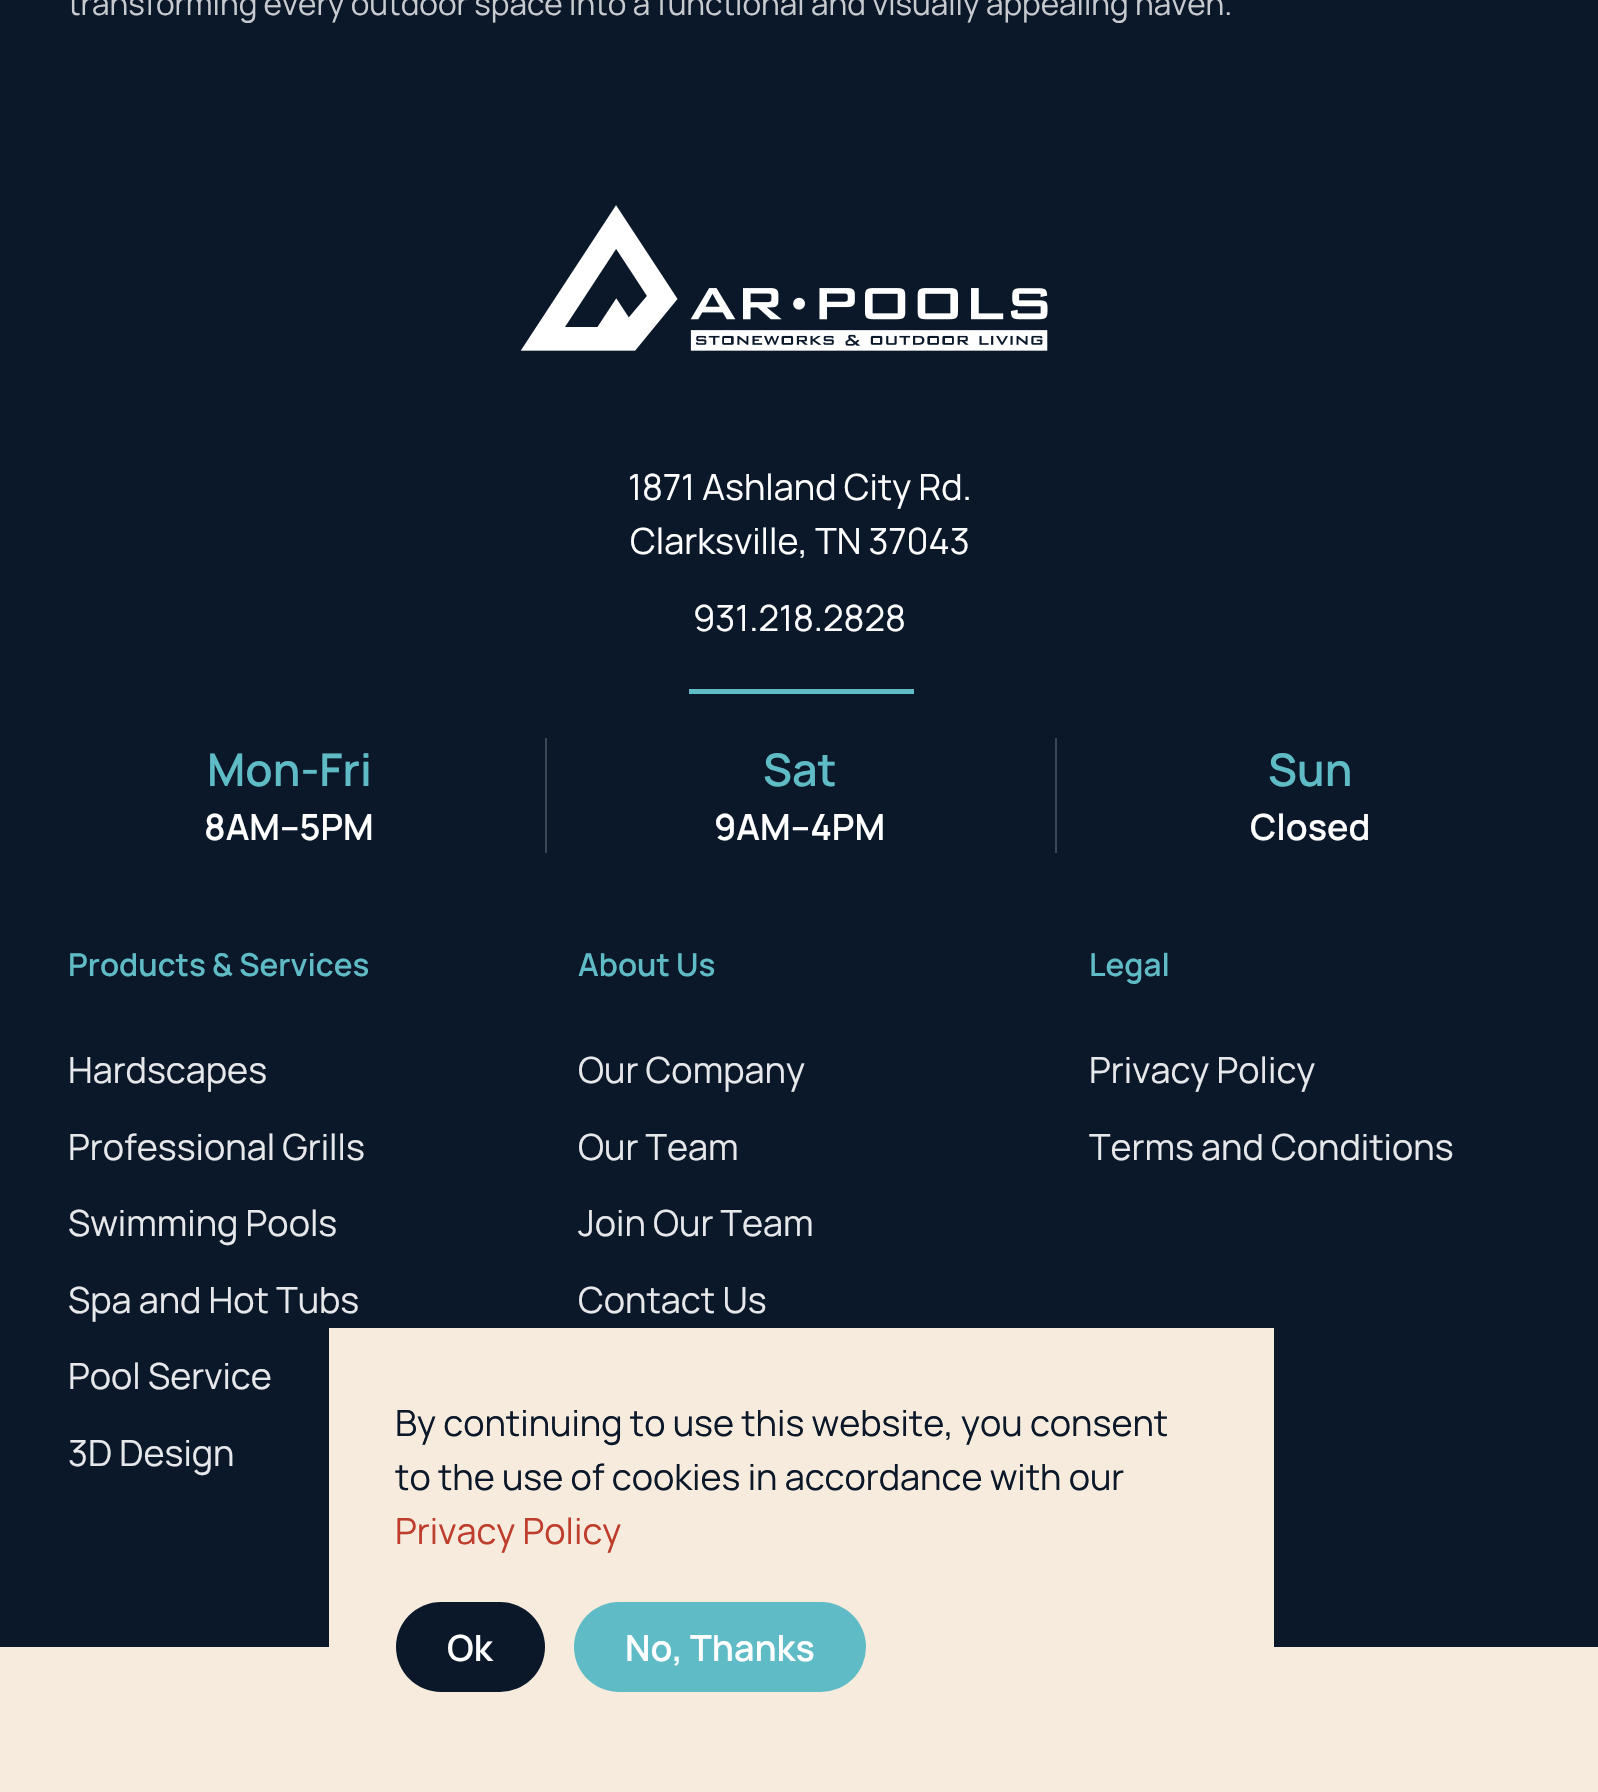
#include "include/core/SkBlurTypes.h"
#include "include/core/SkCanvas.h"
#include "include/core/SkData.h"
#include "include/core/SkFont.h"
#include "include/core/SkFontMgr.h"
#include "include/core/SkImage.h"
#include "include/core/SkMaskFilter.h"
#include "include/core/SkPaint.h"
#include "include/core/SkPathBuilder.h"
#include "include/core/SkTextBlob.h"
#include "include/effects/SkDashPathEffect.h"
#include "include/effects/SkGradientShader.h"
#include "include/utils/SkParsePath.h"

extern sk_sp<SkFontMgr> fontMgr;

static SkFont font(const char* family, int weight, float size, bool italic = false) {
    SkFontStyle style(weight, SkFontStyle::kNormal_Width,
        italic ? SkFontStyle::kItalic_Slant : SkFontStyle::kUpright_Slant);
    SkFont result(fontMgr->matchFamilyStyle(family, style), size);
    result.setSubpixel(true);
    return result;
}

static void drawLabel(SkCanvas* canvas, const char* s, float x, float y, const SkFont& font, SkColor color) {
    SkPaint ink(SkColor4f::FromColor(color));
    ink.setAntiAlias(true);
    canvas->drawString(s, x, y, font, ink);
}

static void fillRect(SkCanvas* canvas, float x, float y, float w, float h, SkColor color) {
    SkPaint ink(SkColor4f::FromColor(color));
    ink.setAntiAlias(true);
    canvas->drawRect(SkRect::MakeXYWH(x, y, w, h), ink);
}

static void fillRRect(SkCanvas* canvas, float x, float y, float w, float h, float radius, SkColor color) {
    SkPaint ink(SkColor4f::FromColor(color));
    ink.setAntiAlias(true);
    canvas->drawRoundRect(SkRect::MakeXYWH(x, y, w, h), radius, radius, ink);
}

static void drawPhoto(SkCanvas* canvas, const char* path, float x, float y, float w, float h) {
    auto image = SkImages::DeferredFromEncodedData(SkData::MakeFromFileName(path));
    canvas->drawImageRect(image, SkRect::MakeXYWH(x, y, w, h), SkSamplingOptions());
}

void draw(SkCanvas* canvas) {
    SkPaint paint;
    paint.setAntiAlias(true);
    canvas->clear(0xFF0B182A);
    SkFont font1 = font("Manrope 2", 200, 31.5f);
    drawLabel(canvas, "transforming every outdoor space into a functional and visually appealing haven.", 68, 15, font1, 0xFFC7CACE);
    drawPhoto(canvas, "assets/img1.png", 520, 205, 528, 146);
    SkFont font2 = font("Manrope 2", 200, 36);
    drawLabel(canvas, "1871 Ashland City Rd.", 628, 500, font2, 0xFFFFFFFF);
    drawLabel(canvas, "Clarksville, TN 37043", 630, 554, font2, 0xFFFFFFFF);
    drawLabel(canvas, "931.218.2828", 693, 631, font2, 0xFFFFFFFF);
    fillRect(canvas, 689, 689, 225, 5, 0xFF5FBBC5);
    SkFont font3 = font("Manrope", 200, 45);
    drawLabel(canvas, "Mon-Fri", 207, 786, font3, 0xFF5FBBC5);
    SkFont font4 = font("Manrope", 200, 36);
    drawLabel(canvas, "8AM–5PM", 204, 840, font4, 0xFFFFFFFF);
    fillRect(canvas, 545, 738, 2, 115, 0xFF3C4655);
    drawLabel(canvas, "Sat", 763, 786, font3, 0xFF5FBBC5);
    drawLabel(canvas, "9AM–4PM", 714, 840, font4, 0xFFFFFFFF);
    fillRect(canvas, 1055, 738, 2, 115, 0xFF3C4655);
    drawLabel(canvas, "Sun", 1268, 786, font3, 0xFF5FBBC5);
    drawLabel(canvas, "Closed", 1250, 840, font4, 0xFFFFFFFF);
    SkFont font5 = font("Manrope", 200, 31.5f);
    drawLabel(canvas, "Products & Services", 68, 976, font5, 0xFF5FBBC5);
    drawLabel(canvas, "Hardscapes", 68, 1083, font2, 0xFFE7E8EA);
    drawLabel(canvas, "Professional Grills", 68, 1160, font2, 0xFFE7E8EA);
    drawLabel(canvas, "Swimming Pools", 68, 1236, font2, 0xFFE7E8EA);
    drawLabel(canvas, "Spa and Hot Tubs", 68, 1313, font2, 0xFFE7E8EA);
    drawLabel(canvas, "Pool Service", 68, 1389, font2, 0xFFE7E8EA);
    drawLabel(canvas, "3D Design", 68, 1466, font2, 0xFFE7E8EA);
    drawLabel(canvas, "About Us", 578, 976, font5, 0xFF5FBBC5);
    drawLabel(canvas, "Our Company", 578, 1083, font2, 0xFFE7E8EA);
    drawLabel(canvas, "Our Team", 578, 1160, font2, 0xFFE7E8EA);
    drawLabel(canvas, "Join Our Team", 578, 1236, font2, 0xFFE7E8EA);
    drawLabel(canvas, "Contact Us", 578, 1313, font2, 0xFFE7E8EA);
    drawLabel(canvas, "Legal", 1089, 976, font5, 0xFF5FBBC5);
    drawLabel(canvas, "Privacy Policy", 1089, 1083, font2, 0xFFE7E8EA);
    drawLabel(canvas, "Terms and Conditions", 1089, 1160, font2, 0xFFE7E8EA);
    fillRect(canvas, 0, 1647, 1598, 145, 0xFFF7EBDD);
    fillRect(canvas, 329, 1328, 945, 319, 0xFFF7EBDD);
    drawLabel(canvas, "By continuing to use this website, you consent", 395, 1436, font2, 0xFF0B182A);
    drawLabel(canvas, "to the use of cookies in accordance with our", 395, 1490, font2, 0xFF0B182A);
    drawLabel(canvas, "Privacy Policy", 395, 1544, font2, 0xFFBE3D2C);
    fillRRect(canvas, 396, 1602, 149, 90, 45, 0xFF0B182A);
    drawLabel(canvas, "Ok", 447, 1661, font4, 0xFFFFFFFF);
    fillRRect(canvas, 574, 1602, 292, 90, 45, 0xFF5FBBC5);
    drawLabel(canvas, "No, Thanks", 625, 1661, font4, 0xFFFFFFFF);
}
